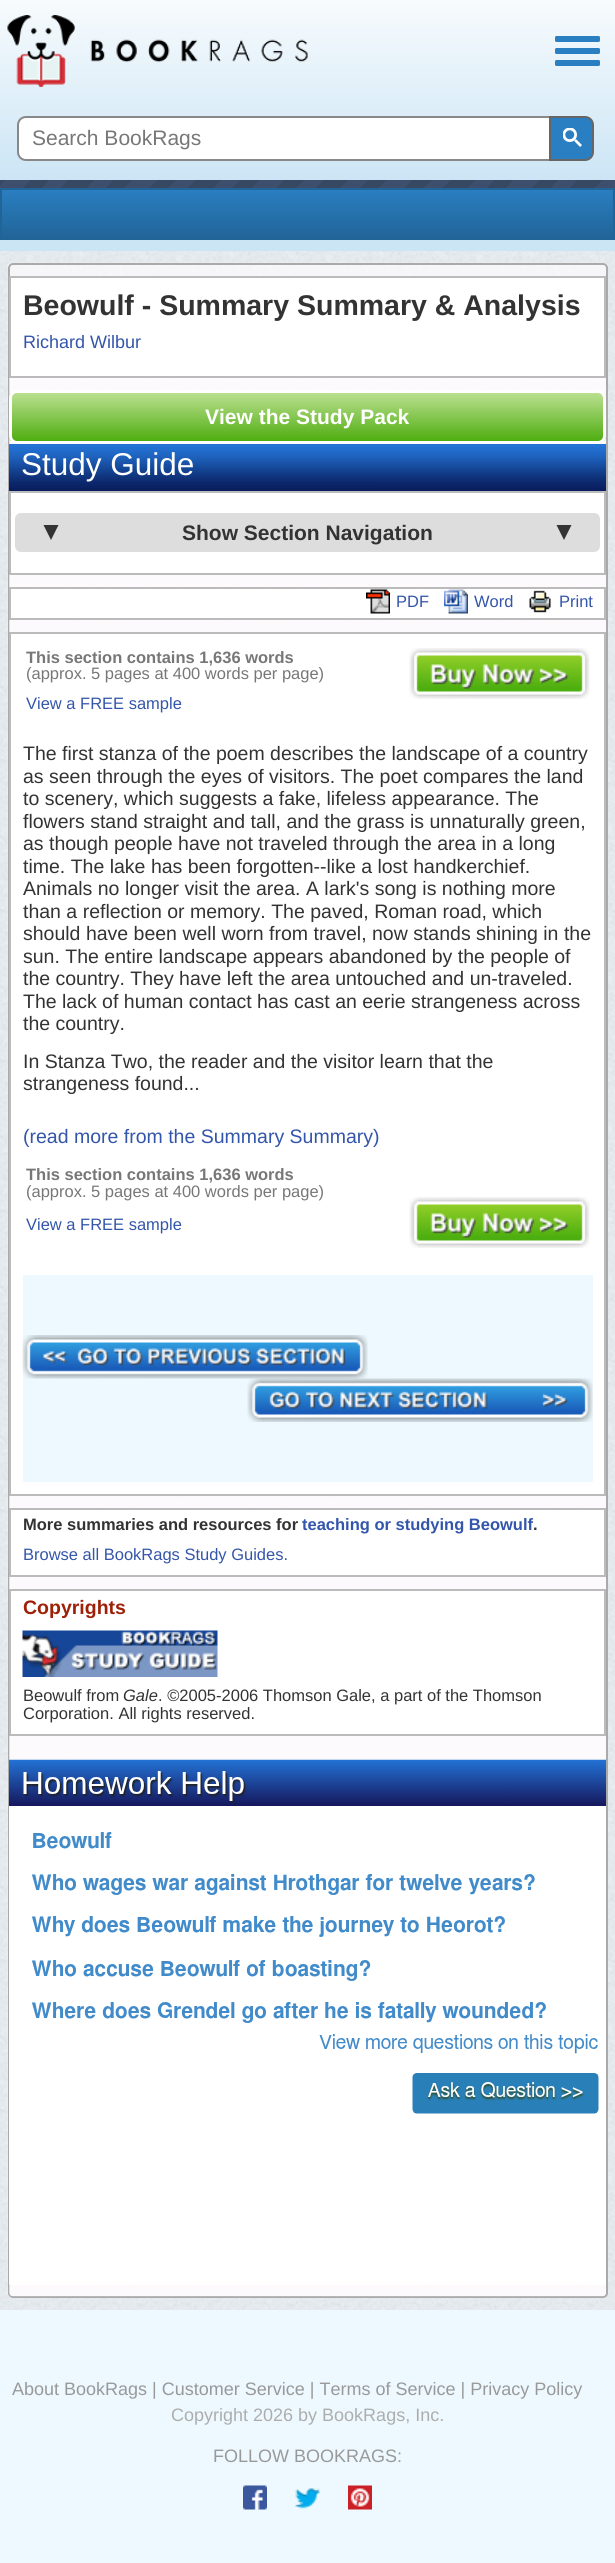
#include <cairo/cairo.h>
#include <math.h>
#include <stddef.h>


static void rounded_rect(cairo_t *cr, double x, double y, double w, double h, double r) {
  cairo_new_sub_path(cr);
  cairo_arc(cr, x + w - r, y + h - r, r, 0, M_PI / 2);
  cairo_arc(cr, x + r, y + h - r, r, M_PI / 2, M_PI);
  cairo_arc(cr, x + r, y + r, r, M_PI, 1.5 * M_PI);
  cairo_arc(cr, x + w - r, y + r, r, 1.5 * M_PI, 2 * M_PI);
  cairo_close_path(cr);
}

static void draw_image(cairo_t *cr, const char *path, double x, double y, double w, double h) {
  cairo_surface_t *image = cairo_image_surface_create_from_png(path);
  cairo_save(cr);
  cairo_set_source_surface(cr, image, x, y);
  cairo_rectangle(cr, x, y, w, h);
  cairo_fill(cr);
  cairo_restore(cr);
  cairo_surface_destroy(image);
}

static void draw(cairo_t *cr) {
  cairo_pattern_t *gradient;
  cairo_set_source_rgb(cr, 1, 1, 1);
  cairo_paint(cr);
  draw_image(cr, "images/1.png", 0, 251, 615, 2059);
  gradient = cairo_pattern_create_linear(308, 0, 308, 180);
  cairo_pattern_add_color_stop_rgba(gradient, 0, 247 / 255.0, 251 / 255.0, 253 / 255.0, 1);
  cairo_pattern_add_color_stop_rgba(gradient, 1, 204 / 255.0, 229 / 255.0, 245 / 255.0, 1);
  cairo_set_source(cr, gradient);
  cairo_pattern_destroy(gradient);
  cairo_rectangle(cr, 0, 0, 615, 180);
  cairo_fill(cr);
  draw_image(cr, "images/2.png", 7, 15, 301, 72);
  cairo_set_source_rgb(cr, 42 / 255.0, 127 / 255.0, 194 / 255.0);
  rounded_rect(cr, 555, 36, 45, 6, 1.5);
  cairo_fill(cr);
  rounded_rect(cr, 555, 48, 45, 6, 1.5);
  cairo_fill(cr);
  rounded_rect(cr, 555, 60, 45, 6, 1.5);
  cairo_fill(cr);
  cairo_set_source_rgb(cr, 1, 1, 1);
  cairo_new_path(cr);
  cairo_move_to(cr, 26, 117);
  cairo_line_to(cr, 550, 117);
  cairo_line_to(cr, 550, 160);
  cairo_line_to(cr, 26, 160);
  cairo_curve_to(cr, 21.5, 160, 18, 156.5, 18, 152);
  cairo_line_to(cr, 18, 125);
  cairo_curve_to(cr, 18, 120.5, 21.5, 117, 26, 117);
  cairo_close_path(cr);
  cairo_fill_preserve(cr);
  cairo_set_source_rgb(cr, 136 / 255.0, 136 / 255.0, 136 / 255.0);
  cairo_stroke(cr);
  cairo_set_source_rgb(cr, 42 / 255.0, 127 / 255.0, 194 / 255.0);
  cairo_new_path(cr);
  cairo_move_to(cr, 550, 117);
  cairo_line_to(cr, 585, 117);
  cairo_curve_to(cr, 589.5, 117, 593, 120.5, 593, 125);
  cairo_line_to(cr, 593, 152);
  cairo_curve_to(cr, 593, 156.5, 589.5, 160, 585, 160);
  cairo_line_to(cr, 550, 160);
  cairo_close_path(cr);
  cairo_fill_preserve(cr);
  cairo_set_source_rgb(cr, 102 / 255.0, 102 / 255.0, 102 / 255.0);
  cairo_stroke(cr);
  draw_image(cr, "images/3.png", 563, 128, 19, 19);
  gradient = cairo_pattern_create_linear(463, 339, 145, 21);
  cairo_pattern_add_color_stop_rgba(gradient, 0, 61 / 255.0, 79 / 255.0, 108 / 255.0, 1);
  cairo_pattern_add_color_stop_rgba(gradient, 0.03, 61 / 255.0, 79 / 255.0, 108 / 255.0, 1);
  cairo_pattern_add_color_stop_rgba(gradient, 0.03, 55 / 255.0, 72 / 255.0, 98 / 255.0, 1);
  cairo_pattern_add_color_stop_rgba(gradient, 0.07, 55 / 255.0, 72 / 255.0, 98 / 255.0, 1);
  cairo_pattern_add_color_stop_rgba(gradient, 0.07, 61 / 255.0, 79 / 255.0, 108 / 255.0, 1);
  cairo_pattern_add_color_stop_rgba(gradient, 0.1, 61 / 255.0, 79 / 255.0, 108 / 255.0, 1);
  cairo_pattern_add_color_stop_rgba(gradient, 0.1, 55 / 255.0, 72 / 255.0, 98 / 255.0, 1);
  cairo_pattern_add_color_stop_rgba(gradient, 0.13, 55 / 255.0, 72 / 255.0, 98 / 255.0, 1);
  cairo_pattern_add_color_stop_rgba(gradient, 0.13, 61 / 255.0, 79 / 255.0, 108 / 255.0, 1);
  cairo_pattern_add_color_stop_rgba(gradient, 0.17, 61 / 255.0, 79 / 255.0, 108 / 255.0, 1);
  cairo_pattern_add_color_stop_rgba(gradient, 0.17, 55 / 255.0, 72 / 255.0, 98 / 255.0, 1);
  cairo_pattern_add_color_stop_rgba(gradient, 0.2, 55 / 255.0, 72 / 255.0, 98 / 255.0, 1);
  cairo_pattern_add_color_stop_rgba(gradient, 0.2, 61 / 255.0, 79 / 255.0, 108 / 255.0, 1);
  cairo_pattern_add_color_stop_rgba(gradient, 0.23, 61 / 255.0, 79 / 255.0, 108 / 255.0, 1);
  cairo_pattern_add_color_stop_rgba(gradient, 0.23, 55 / 255.0, 72 / 255.0, 98 / 255.0, 1);
  cairo_pattern_add_color_stop_rgba(gradient, 0.27, 55 / 255.0, 72 / 255.0, 98 / 255.0, 1);
  cairo_pattern_add_color_stop_rgba(gradient, 0.27, 61 / 255.0, 79 / 255.0, 108 / 255.0, 1);
  cairo_pattern_add_color_stop_rgba(gradient, 0.3, 61 / 255.0, 79 / 255.0, 108 / 255.0, 1);
  cairo_pattern_add_color_stop_rgba(gradient, 0.3, 55 / 255.0, 72 / 255.0, 98 / 255.0, 1);
  cairo_pattern_add_color_stop_rgba(gradient, 0.33, 55 / 255.0, 72 / 255.0, 98 / 255.0, 1);
  cairo_pattern_add_color_stop_rgba(gradient, 0.33, 61 / 255.0, 79 / 255.0, 108 / 255.0, 1);
  cairo_pattern_add_color_stop_rgba(gradient, 0.37, 61 / 255.0, 79 / 255.0, 108 / 255.0, 1);
  cairo_pattern_add_color_stop_rgba(gradient, 0.37, 55 / 255.0, 72 / 255.0, 98 / 255.0, 1);
  cairo_pattern_add_color_stop_rgba(gradient, 0.4, 55 / 255.0, 72 / 255.0, 98 / 255.0, 1);
  cairo_pattern_add_color_stop_rgba(gradient, 0.4, 61 / 255.0, 79 / 255.0, 108 / 255.0, 1);
  cairo_pattern_add_color_stop_rgba(gradient, 0.43, 61 / 255.0, 79 / 255.0, 108 / 255.0, 1);
  cairo_pattern_add_color_stop_rgba(gradient, 0.43, 55 / 255.0, 72 / 255.0, 98 / 255.0, 1);
  cairo_pattern_add_color_stop_rgba(gradient, 0.47, 55 / 255.0, 72 / 255.0, 98 / 255.0, 1);
  cairo_pattern_add_color_stop_rgba(gradient, 0.47, 61 / 255.0, 79 / 255.0, 108 / 255.0, 1);
  cairo_pattern_add_color_stop_rgba(gradient, 0.5, 61 / 255.0, 79 / 255.0, 108 / 255.0, 1);
  cairo_pattern_add_color_stop_rgba(gradient, 0.5, 55 / 255.0, 72 / 255.0, 98 / 255.0, 1);
  cairo_pattern_add_color_stop_rgba(gradient, 0.53, 55 / 255.0, 72 / 255.0, 98 / 255.0, 1);
  cairo_pattern_add_color_stop_rgba(gradient, 0.53, 61 / 255.0, 79 / 255.0, 108 / 255.0, 1);
  cairo_pattern_add_color_stop_rgba(gradient, 0.57, 61 / 255.0, 79 / 255.0, 108 / 255.0, 1);
  cairo_pattern_add_color_stop_rgba(gradient, 0.57, 55 / 255.0, 72 / 255.0, 98 / 255.0, 1);
  cairo_pattern_add_color_stop_rgba(gradient, 0.6, 55 / 255.0, 72 / 255.0, 98 / 255.0, 1);
  cairo_pattern_add_color_stop_rgba(gradient, 0.6, 61 / 255.0, 79 / 255.0, 108 / 255.0, 1);
  cairo_pattern_add_color_stop_rgba(gradient, 0.63, 61 / 255.0, 79 / 255.0, 108 / 255.0, 1);
  cairo_pattern_add_color_stop_rgba(gradient, 0.63, 55 / 255.0, 72 / 255.0, 98 / 255.0, 1);
  cairo_pattern_add_color_stop_rgba(gradient, 0.67, 55 / 255.0, 72 / 255.0, 98 / 255.0, 1);
  cairo_pattern_add_color_stop_rgba(gradient, 0.67, 61 / 255.0, 79 / 255.0, 108 / 255.0, 1);
  cairo_pattern_add_color_stop_rgba(gradient, 0.7, 61 / 255.0, 79 / 255.0, 108 / 255.0, 1);
  cairo_pattern_add_color_stop_rgba(gradient, 0.7, 55 / 255.0, 72 / 255.0, 98 / 255.0, 1);
  cairo_pattern_add_color_stop_rgba(gradient, 0.73, 55 / 255.0, 72 / 255.0, 98 / 255.0, 1);
  cairo_pattern_add_color_stop_rgba(gradient, 0.73, 61 / 255.0, 79 / 255.0, 108 / 255.0, 1);
  cairo_pattern_add_color_stop_rgba(gradient, 0.77, 61 / 255.0, 79 / 255.0, 108 / 255.0, 1);
  cairo_pattern_add_color_stop_rgba(gradient, 0.77, 55 / 255.0, 72 / 255.0, 98 / 255.0, 1);
  cairo_pattern_add_color_stop_rgba(gradient, 0.8, 55 / 255.0, 72 / 255.0, 98 / 255.0, 1);
  cairo_pattern_add_color_stop_rgba(gradient, 0.8, 61 / 255.0, 79 / 255.0, 108 / 255.0, 1);
  cairo_pattern_add_color_stop_rgba(gradient, 0.83, 61 / 255.0, 79 / 255.0, 108 / 255.0, 1);
  cairo_pattern_add_color_stop_rgba(gradient, 0.83, 55 / 255.0, 72 / 255.0, 98 / 255.0, 1);
  cairo_pattern_add_color_stop_rgba(gradient, 0.87, 55 / 255.0, 72 / 255.0, 98 / 255.0, 1);
  cairo_pattern_add_color_stop_rgba(gradient, 0.87, 61 / 255.0, 79 / 255.0, 108 / 255.0, 1);
  cairo_pattern_add_color_stop_rgba(gradient, 0.9, 61 / 255.0, 79 / 255.0, 108 / 255.0, 1);
  cairo_pattern_add_color_stop_rgba(gradient, 0.9, 55 / 255.0, 72 / 255.0, 98 / 255.0, 1);
  cairo_pattern_add_color_stop_rgba(gradient, 0.93, 55 / 255.0, 72 / 255.0, 98 / 255.0, 1);
  cairo_pattern_add_color_stop_rgba(gradient, 0.93, 61 / 255.0, 79 / 255.0, 108 / 255.0, 1);
  cairo_pattern_add_color_stop_rgba(gradient, 0.97, 61 / 255.0, 79 / 255.0, 108 / 255.0, 1);
  cairo_pattern_add_color_stop_rgba(gradient, 0.97, 55 / 255.0, 72 / 255.0, 98 / 255.0, 1);
  cairo_pattern_add_color_stop_rgba(gradient, 1, 55 / 255.0, 72 / 255.0, 98 / 255.0, 1);
  cairo_set_source(cr, gradient);
  cairo_pattern_destroy(gradient);
  cairo_rectangle(cr, 0, 180, 615, 8);
  cairo_fill(cr);
  gradient = cairo_pattern_create_linear(308, 189, 308, 239);
  cairo_pattern_add_color_stop_rgba(gradient, 0, 42 / 255.0, 127 / 255.0, 194 / 255.0, 1);
  cairo_pattern_add_color_stop_rgba(gradient, 1, 33 / 255.0, 100 / 255.0, 152 / 255.0, 1);
  cairo_set_source(cr, gradient);
  cairo_pattern_destroy(gradient);
  cairo_rectangle(cr, 2, 190, 611, 48);
  cairo_fill(cr);
  cairo_rectangle(cr, 1, 189, 613, 50);
  cairo_set_source_rgb(cr, 33 / 255.0, 100 / 255.0, 152 / 255.0);
  cairo_stroke(cr);
  cairo_set_source_rgb(cr, 204 / 255.0, 229 / 255.0, 245 / 255.0);
  cairo_rectangle(cr, 0, 240, 615, 11);
  cairo_fill(cr);
  draw_image(cr, "images/4.png", 7, 262, 601, 2036);
  rounded_rect(cr, 9, 264, 598, 2033, 4);
  cairo_set_source_rgb(cr, 170 / 255.0, 170 / 255.0, 170 / 255.0);
  cairo_stroke(cr);
  draw_image(cr, "images/5.png", 9, 378, 597, 1919);
  cairo_set_source_rgb(cr, 1, 1, 1);
  cairo_rectangle(cr, 10, 277, 595, 100);
  cairo_fill_preserve(cr);
  cairo_set_source_rgb(cr, 187 / 255.0, 187 / 255.0, 187 / 255.0);
  cairo_stroke(cr);
  cairo_save(cr);
  rounded_rect(cr, 9, 390, 597, 54, 8);
  cairo_clip(cr);
  gradient = cairo_pattern_create_linear(308, 393, 308, 441);
  cairo_pattern_add_color_stop_rgba(gradient, 0, 187 / 255.0, 224 / 255.0, 144 / 255.0, 1);
  cairo_pattern_add_color_stop_rgba(gradient, 1, 79 / 255.0, 173 / 255.0, 16 / 255.0, 1);
  cairo_set_source(cr, gradient);
  cairo_pattern_destroy(gradient);
  cairo_rectangle(cr, 9, 393, 597, 48);
  cairo_fill(cr);
  cairo_restore(cr);
  rounded_rect(cr, 10.5, 391.5, 594, 51, 6.5);
  cairo_set_source_rgb(cr, 1, 1, 1);
  cairo_set_line_width(cr, 3);
  cairo_stroke(cr);
  cairo_set_source_rgb(cr, 9 / 255.0, 30 / 255.0, 94 / 255.0);
  cairo_rectangle(cr, 9, 488, 597, 3);
  cairo_fill(cr);
  draw_image(cr, "images/6.png", 9, 444, 597, 44);
  cairo_set_source_rgb(cr, 1, 1, 1);
  cairo_rectangle(cr, 10, 492, 595, 82);
  cairo_fill_preserve(cr);
  cairo_set_source_rgb(cr, 187 / 255.0, 187 / 255.0, 187 / 255.0);
  cairo_set_line_width(cr, 2);
  cairo_stroke(cr);
  cairo_set_source_rgb(cr, 221 / 255.0, 221 / 255.0, 221 / 255.0);
  rounded_rect(cr, 15, 513, 585, 39, 6);
  cairo_fill(cr);
  cairo_set_source_rgb(cr, 51 / 255.0, 51 / 255.0, 51 / 255.0);
  cairo_new_path(cr);
  cairo_move_to(cr, 43.5, 525);
  cairo_line_to(cr, 58.5, 525);
  cairo_line_to(cr, 51, 540);
  cairo_close_path(cr);
  cairo_fill(cr);
  cairo_new_path(cr);
  cairo_move_to(cr, 556.5, 525);
  cairo_line_to(cr, 571.5, 525);
  cairo_line_to(cr, 564, 540);
  cairo_close_path(cr);
  cairo_fill(cr);
  cairo_set_source_rgb(cr, 1, 1, 1);
  cairo_rectangle(cr, 10, 588, 595, 31);
  cairo_fill_preserve(cr);
  cairo_set_source_rgb(cr, 187 / 255.0, 187 / 255.0, 187 / 255.0);
  cairo_stroke(cr);
  draw_image(cr, "images/7.png", 366, 589, 24, 25);
  draw_image(cr, "images/8.png", 444, 589, 24, 25);
  draw_image(cr, "images/9.png", 529, 590, 22, 23);
  cairo_set_source_rgb(cr, 1, 1, 1);
  cairo_rectangle(cr, 10, 633, 595, 862);
  cairo_fill_preserve(cr);
  cairo_set_source_rgb(cr, 187 / 255.0, 187 / 255.0, 187 / 255.0);
  cairo_stroke(cr);
  draw_image(cr, "images/10.png", 409, 648, 181, 51);
  draw_image(cr, "images/10.png", 409, 1197, 181, 51);
  cairo_set_source_rgb(cr, 237 / 255.0, 249 / 255.0, 1);
  cairo_rectangle(cr, 23, 1275, 570, 207);
  cairo_fill(cr);
  draw_image(cr, "images/11.png", 22, 1335, 346, 44);
  draw_image(cr, "images/12.png", 247, 1378, 346, 44);
  cairo_set_source_rgb(cr, 1, 1, 1);
  cairo_rectangle(cr, 10, 1509, 595, 67);
  cairo_fill_preserve(cr);
  cairo_set_source_rgb(cr, 187 / 255.0, 187 / 255.0, 187 / 255.0);
  cairo_stroke(cr);
  cairo_set_source_rgb(cr, 1, 1, 1);
  cairo_rectangle(cr, 10, 1590, 595, 145);
  cairo_fill_preserve(cr);
  cairo_set_source_rgb(cr, 187 / 255.0, 187 / 255.0, 187 / 255.0);
  cairo_stroke(cr);
  draw_image(cr, "images/13.png", 22, 1630, 196, 47);
  cairo_set_source_rgb(cr, 1, 1, 1);
  rounded_rect(cr, 9, 1760, 597, 525, 5);
  cairo_fill(cr);
  draw_image(cr, "images/14.png", 9, 1759, 597, 526);
  cairo_set_source_rgb(cr, 237 / 255.0, 249 / 255.0, 1);
  cairo_rectangle(cr, 0, 2310, 615, 253);
  cairo_fill(cr);
  draw_image(cr, "images/15.png", 243, 2485, 24, 25);
  draw_image(cr, "images/16.png", 295, 2488, 25, 21);
  draw_image(cr, "images/17.png", 348, 2485, 24, 25);
  cairo_select_font_face(cr, "Liberation Sans", CAIRO_FONT_SLANT_NORMAL, CAIRO_FONT_WEIGHT_NORMAL);
  cairo_set_font_size(cr, 21);
  cairo_set_source_rgb(cr, 119 / 255.0, 119 / 255.0, 119 / 255.0);
  cairo_move_to(cr, 32, 145);
  cairo_show_text(cr, "Search BookRags");
  cairo_select_font_face(cr, "Liberation Sans", CAIRO_FONT_SLANT_NORMAL, CAIRO_FONT_WEIGHT_BOLD);
  cairo_set_font_size(cr, 28.5);
  cairo_set_source_rgb(cr, 51 / 255.0, 51 / 255.0, 51 / 255.0);
  cairo_move_to(cr, 23, 315);
  cairo_show_text(cr, "Beowulf - Summary Summary & Analysis");
  cairo_select_font_face(cr, "Liberation Sans", CAIRO_FONT_SLANT_NORMAL, CAIRO_FONT_WEIGHT_NORMAL);
  cairo_set_font_size(cr, 18);
  cairo_set_source_rgb(cr, 51 / 255.0, 85 / 255.0, 170 / 255.0);
  cairo_move_to(cr, 23, 348);
  cairo_show_text(cr, "Richard Wilbur");
  cairo_select_font_face(cr, "Liberation Sans", CAIRO_FONT_SLANT_NORMAL, CAIRO_FONT_WEIGHT_BOLD);
  cairo_set_font_size(cr, 21);
  cairo_set_source_rgb(cr, 1, 1, 1);
  cairo_move_to(cr, 205, 424);
  cairo_show_text(cr, "View the Study Pack");
  cairo_select_font_face(cr, "Liberation Sans", CAIRO_FONT_SLANT_NORMAL, CAIRO_FONT_WEIGHT_NORMAL);
  cairo_set_font_size(cr, 31.5);
  cairo_move_to(cr, 21, 475);
  cairo_show_text(cr, "Study Guide");
  cairo_select_font_face(cr, "Liberation Sans", CAIRO_FONT_SLANT_NORMAL, CAIRO_FONT_WEIGHT_BOLD);
  cairo_set_font_size(cr, 21);
  cairo_set_source_rgb(cr, 51 / 255.0, 51 / 255.0, 51 / 255.0);
  cairo_move_to(cr, 182, 540);
  cairo_show_text(cr, "Show Section Navigation");
  cairo_select_font_face(cr, "Liberation Sans", CAIRO_FONT_SLANT_NORMAL, CAIRO_FONT_WEIGHT_NORMAL);
  cairo_set_font_size(cr, 16.5);
  cairo_set_source_rgb(cr, 51 / 255.0, 85 / 255.0, 170 / 255.0);
  cairo_move_to(cr, 396, 607);
  cairo_show_text(cr, "PDF");
  cairo_move_to(cr, 474, 607);
  cairo_show_text(cr, "Word");
  cairo_move_to(cr, 559, 607);
  cairo_show_text(cr, "Print");
  cairo_select_font_face(cr, "Liberation Sans", CAIRO_FONT_SLANT_NORMAL, CAIRO_FONT_WEIGHT_BOLD);
  cairo_set_source_rgb(cr, 119 / 255.0, 119 / 255.0, 119 / 255.0);
  cairo_move_to(cr, 26, 663);
  cairo_show_text(cr, "This section contains 1,636 words");
  cairo_select_font_face(cr, "Liberation Sans", CAIRO_FONT_SLANT_NORMAL, CAIRO_FONT_WEIGHT_NORMAL);
  cairo_move_to(cr, 26, 679);
  cairo_show_text(cr, "(approx. 5 pages at 400 words per page)");
  cairo_set_source_rgb(cr, 51 / 255.0, 85 / 255.0, 170 / 255.0);
  cairo_move_to(cr, 26, 709);
  cairo_show_text(cr, "View a FREE sample");
  cairo_set_font_size(cr, 19.5);
  cairo_set_source_rgb(cr, 51 / 255.0, 51 / 255.0, 51 / 255.0);
  cairo_move_to(cr, 23, 760);
  cairo_show_text(cr, "The first stanza of the poem describes the landscape of a country");
  cairo_move_to(cr, 23, 783);
  cairo_show_text(cr, "as seen through the eyes of visitors. The poet compares the land");
  cairo_move_to(cr, 23, 805);
  cairo_show_text(cr, "to scenery, which suggests a fake, lifeless appearance. The");
  cairo_move_to(cr, 23, 828);
  cairo_show_text(cr, "flowers stand straight and tall, and the grass is unnaturally green,");
  cairo_move_to(cr, 23, 850);
  cairo_show_text(cr, "as though people have not traveled through the area in a long");
  cairo_move_to(cr, 23, 873);
  cairo_show_text(cr, "time. The lake has been forgotten--like a lost handkerchief.");
  cairo_move_to(cr, 23, 895);
  cairo_show_text(cr, "Animals no longer visit the area. A lark's song is nothing more");
  cairo_move_to(cr, 23, 918);
  cairo_show_text(cr, "than a reflection or memory. The paved, Roman road, which");
  cairo_move_to(cr, 23, 940);
  cairo_show_text(cr, "should have been well worn from travel, now stands shining in the");
  cairo_move_to(cr, 23, 963);
  cairo_show_text(cr, "sun. The entire landscape appears abandoned by the people of");
  cairo_move_to(cr, 23, 985);
  cairo_show_text(cr, "the country. They have left the area untouched and un-traveled.");
  cairo_move_to(cr, 23, 1008);
  cairo_show_text(cr, "The lack of human contact has cast an eerie strangeness across");
  cairo_move_to(cr, 23, 1030);
  cairo_show_text(cr, "the country.");
  cairo_move_to(cr, 23, 1068);
  cairo_show_text(cr, "In Stanza Two, the reader and the visitor learn that the");
  cairo_move_to(cr, 23, 1090);
  cairo_show_text(cr, "strangeness found...");
  cairo_set_source_rgb(cr, 51 / 255.0, 85 / 255.0, 170 / 255.0);
  cairo_move_to(cr, 23, 1143);
  cairo_show_text(cr, "(read more from the Summary Summary)");
  cairo_select_font_face(cr, "Liberation Sans", CAIRO_FONT_SLANT_NORMAL, CAIRO_FONT_WEIGHT_BOLD);
  cairo_set_font_size(cr, 16.5);
  cairo_set_source_rgb(cr, 119 / 255.0, 119 / 255.0, 119 / 255.0);
  cairo_move_to(cr, 26, 1180);
  cairo_show_text(cr, "This section contains 1,636 words");
  cairo_select_font_face(cr, "Liberation Sans", CAIRO_FONT_SLANT_NORMAL, CAIRO_FONT_WEIGHT_NORMAL);
  cairo_move_to(cr, 26, 1197);
  cairo_show_text(cr, "(approx. 5 pages at 400 words per page)");
  cairo_set_source_rgb(cr, 51 / 255.0, 85 / 255.0, 170 / 255.0);
  cairo_move_to(cr, 26, 1230);
  cairo_show_text(cr, "View a FREE sample");
  cairo_select_font_face(cr, "Liberation Sans", CAIRO_FONT_SLANT_NORMAL, CAIRO_FONT_WEIGHT_BOLD);
  cairo_set_source_rgb(cr, 51 / 255.0, 51 / 255.0, 51 / 255.0);
  cairo_move_to(cr, 23, 1530);
  cairo_show_text(cr, "More summaries and resources for");
  cairo_set_source_rgb(cr, 51 / 255.0, 85 / 255.0, 170 / 255.0);
  cairo_move_to(cr, 302, 1530);
  cairo_show_text(cr, "teaching or studying Beowulf");
  cairo_set_source_rgb(cr, 51 / 255.0, 51 / 255.0, 51 / 255.0);
  cairo_move_to(cr, 533, 1530);
  cairo_show_text(cr, ".");
  cairo_select_font_face(cr, "Liberation Sans", CAIRO_FONT_SLANT_NORMAL, CAIRO_FONT_WEIGHT_NORMAL);
  cairo_set_source_rgb(cr, 51 / 255.0, 85 / 255.0, 170 / 255.0);
  cairo_move_to(cr, 23, 1560);
  cairo_show_text(cr, "Browse all BookRags Study Guides.");
  cairo_select_font_face(cr, "Liberation Sans", CAIRO_FONT_SLANT_NORMAL, CAIRO_FONT_WEIGHT_BOLD);
  cairo_set_font_size(cr, 19.5);
  cairo_set_source_rgb(cr, 157 / 255.0, 33 / 255.0, 8 / 255.0);
  cairo_move_to(cr, 23, 1614);
  cairo_show_text(cr, "Copyrights");
  cairo_select_font_face(cr, "Liberation Sans", CAIRO_FONT_SLANT_NORMAL, CAIRO_FONT_WEIGHT_NORMAL);
  cairo_set_font_size(cr, 16.5);
  cairo_set_source_rgb(cr, 51 / 255.0, 51 / 255.0, 51 / 255.0);
  cairo_move_to(cr, 23, 1701);
  cairo_show_text(cr, "Beowulf from");
  cairo_select_font_face(cr, "Liberation Sans", CAIRO_FONT_SLANT_ITALIC, CAIRO_FONT_WEIGHT_NORMAL);
  cairo_move_to(cr, 123, 1701);
  cairo_show_text(cr, "Gale");
  cairo_select_font_face(cr, "Liberation Sans", CAIRO_FONT_SLANT_NORMAL, CAIRO_FONT_WEIGHT_NORMAL);
  cairo_move_to(cr, 158, 1701);
  cairo_show_text(cr, ". ©2005-2006 Thomson Gale, a part of the Thomson");
  cairo_move_to(cr, 23, 1719);
  cairo_show_text(cr, "Corporation. All rights reserved.");
  cairo_set_font_size(cr, 18);
  cairo_set_source_rgb(cr, 153 / 255.0, 153 / 255.0, 153 / 255.0);
  cairo_move_to(cr, 12, 2395);
  cairo_show_text(cr, "About BookRags | Customer Service | Terms of Service | Privacy Policy");
  cairo_set_source_rgb(cr, 173 / 255.0, 173 / 255.0, 173 / 255.0);
  cairo_move_to(cr, 171, 2421);
  cairo_show_text(cr, "Copyright 2026 by BookRags, Inc.");
  cairo_set_source_rgb(cr, 153 / 255.0, 153 / 255.0, 153 / 255.0);
  cairo_move_to(cr, 213, 2462);
  cairo_show_text(cr, "FOLLOW BOOKRAGS:");
}

int main(void) {
  cairo_surface_t *surface = cairo_image_surface_create(CAIRO_FORMAT_RGB24, 615, 2563);
  cairo_t *cr = cairo_create(surface);
  cairo_font_options_t *options = cairo_font_options_create();
  cairo_font_options_set_hint_metrics(options, CAIRO_HINT_METRICS_OFF);
  cairo_font_options_set_hint_style(options, CAIRO_HINT_STYLE_NONE);
  cairo_set_font_options(cr, options);
  cairo_set_miter_limit(cr, 4);
  draw(cr);
  cairo_surface_write_to_png(surface, "out.png");
  cairo_font_options_destroy(options);
  cairo_destroy(cr);
  cairo_surface_destroy(surface);
  return 0;
}
